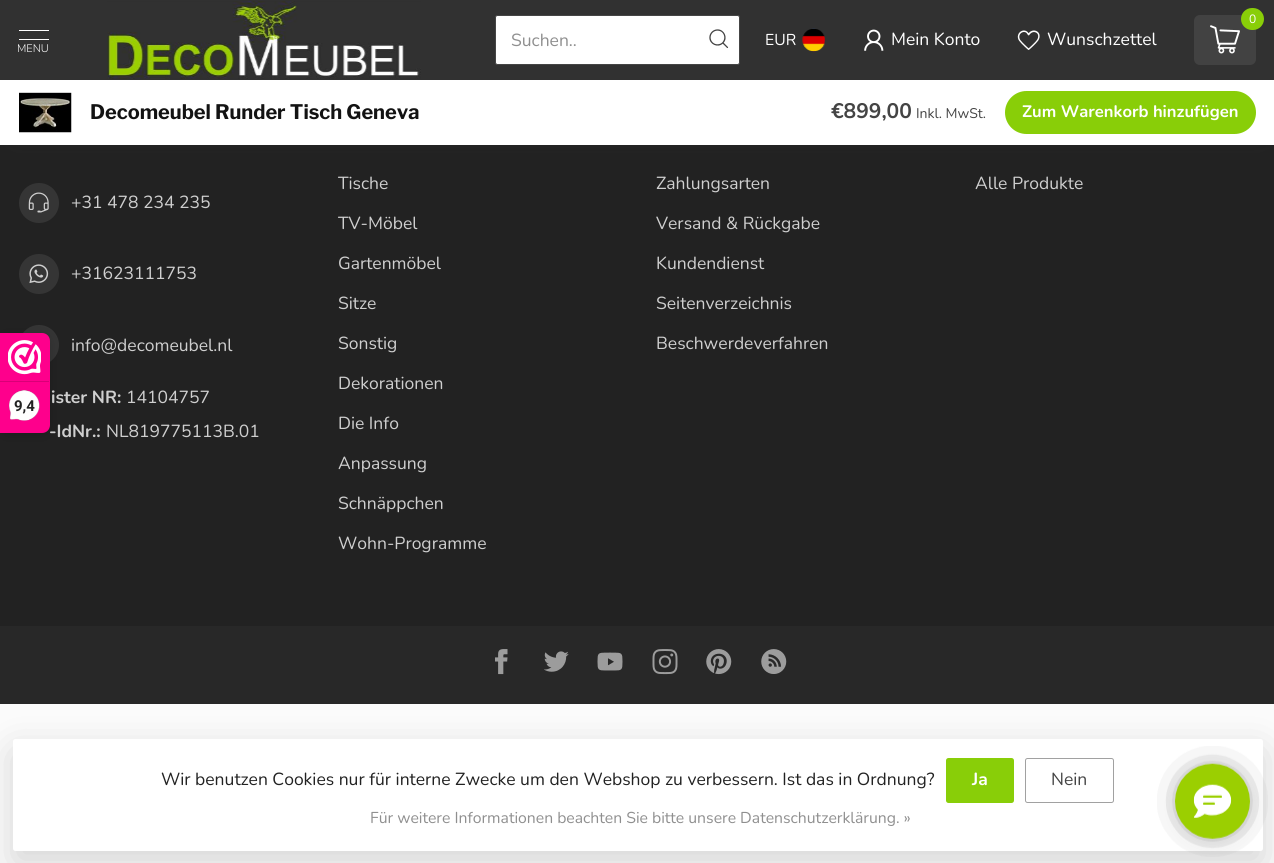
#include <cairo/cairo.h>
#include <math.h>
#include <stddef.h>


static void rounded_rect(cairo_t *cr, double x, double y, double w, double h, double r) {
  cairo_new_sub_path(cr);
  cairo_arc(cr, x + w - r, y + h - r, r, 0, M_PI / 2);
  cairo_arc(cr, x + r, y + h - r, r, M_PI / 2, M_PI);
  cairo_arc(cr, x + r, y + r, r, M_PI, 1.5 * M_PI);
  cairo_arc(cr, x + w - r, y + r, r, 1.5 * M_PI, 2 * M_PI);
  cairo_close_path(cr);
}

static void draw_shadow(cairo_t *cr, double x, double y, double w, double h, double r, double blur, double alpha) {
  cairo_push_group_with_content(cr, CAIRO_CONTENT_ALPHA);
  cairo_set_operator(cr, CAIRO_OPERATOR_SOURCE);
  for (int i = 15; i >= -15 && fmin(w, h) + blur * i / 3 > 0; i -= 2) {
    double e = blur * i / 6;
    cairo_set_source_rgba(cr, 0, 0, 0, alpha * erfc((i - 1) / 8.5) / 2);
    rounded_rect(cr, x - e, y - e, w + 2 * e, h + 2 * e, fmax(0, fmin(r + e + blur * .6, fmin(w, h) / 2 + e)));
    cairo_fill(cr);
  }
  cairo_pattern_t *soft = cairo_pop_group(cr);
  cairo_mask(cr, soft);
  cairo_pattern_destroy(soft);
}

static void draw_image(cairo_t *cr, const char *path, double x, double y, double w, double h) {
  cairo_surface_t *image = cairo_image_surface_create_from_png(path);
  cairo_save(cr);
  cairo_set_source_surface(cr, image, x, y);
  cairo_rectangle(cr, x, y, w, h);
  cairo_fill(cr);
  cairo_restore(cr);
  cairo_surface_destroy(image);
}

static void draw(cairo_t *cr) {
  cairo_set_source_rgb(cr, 34 / 255.0, 34 / 255.0, 34 / 255.0);
  cairo_paint(cr);
  cairo_set_source_rgb(cr, 68 / 255.0, 68 / 255.0, 68 / 255.0);
  draw_shadow(cr, 18, 100, 1240, 30, 0, 9.5, 1);
  cairo_set_source_rgb(cr, 49 / 255.0, 49 / 255.0, 49 / 255.0);
  cairo_rectangle(cr, 0, 0, 1274, 80);
  cairo_fill(cr);
  draw_image(cr, "images/1.png", 107, 1, 314, 78);
  cairo_set_source_rgb(cr, 1, 1, 1);
  rounded_rect(cr, 495.5, 15.5, 244, 49, 2);
  cairo_fill_preserve(cr);
  cairo_set_source_rgb(cr, 69 / 255.0, 69 / 255.0, 69 / 255.0);
  cairo_set_line_width(cr, 1);
  cairo_stroke(cr);
  draw_image(cr, "images/2.png", 709, 29, 20, 20);
  cairo_set_source_rgb(cr, 1, 1, 1);
  cairo_rectangle(cr, 19, 30, 30, 1);
  cairo_fill(cr);
  cairo_rectangle(cr, 19, 39, 30, 1);
  cairo_fill(cr);
  cairo_set_source_rgb(cr, 66 / 255.0, 66 / 255.0, 66 / 255.0);
  rounded_rect(cr, 1194, 15, 62, 50, 6);
  cairo_fill(cr);
  cairo_set_source_rgb(cr, 137 / 255.0, 206 / 255.0, 8 / 255.0);
  rounded_rect(cr, 1241, 8, 23, 22, 11);
  cairo_fill(cr);
  draw_image(cr, "images/3.png", 1210, 25, 30, 29);
  draw_image(cr, "images/4.png", 802, 28, 23, 24);
  draw_image(cr, "images/5.png", 864, 29, 20, 22);
  draw_image(cr, "images/6.png", 1017, 30, 23, 20);
  cairo_set_source_rgb(cr, 1, 1, 1);
  cairo_rectangle(cr, 0, 80, 1274, 65);
  cairo_fill(cr);
  draw_image(cr, "images/7.png", 19, 92, 53, 41);
  cairo_set_source_rgb(cr, 137 / 255.0, 206 / 255.0, 8 / 255.0);
  rounded_rect(cr, 1005, 91, 251, 43, 21.5);
  cairo_fill(cr);
  cairo_set_source_rgb(cr, 53 / 255.0, 53 / 255.0, 53 / 255.0);
  cairo_arc(cr, 39, 345, 20, 0, 2 * M_PI);
  cairo_fill(cr);
  cairo_set_source_rgb(cr, 0, 0, 0);
  draw_shadow(cr, 0, 335, 50, 100, 8, 6, 0.15);
  cairo_set_source_rgb(cr, 254 / 255.0, 0, 140 / 255.0);
  cairo_new_path(cr);
  cairo_move_to(cr, 0, 333);
  cairo_line_to(cr, 42, 333);
  cairo_curve_to(cr, 46.5, 333, 50, 336.5, 50, 341);
  cairo_line_to(cr, 50, 425);
  cairo_curve_to(cr, 50, 429.5, 46.5, 433, 42, 433);
  cairo_line_to(cr, 0, 433);
  cairo_close_path(cr);
  cairo_fill(cr);
  draw_image(cr, "images/8.png", 8, 340, 33, 35);
  cairo_set_source_rgb(cr, 216 / 255.0, 0, 119 / 255.0);
  cairo_rectangle(cr, 0, 381, 49, 1);
  cairo_fill(cr);
  draw_image(cr, "images/9.png", 9, 390, 31, 31);
  cairo_set_source_rgb(cr, 53 / 255.0, 53 / 255.0, 53 / 255.0);
  cairo_arc(cr, 39, 203, 20, 0, 2 * M_PI);
  cairo_fill(cr);
  draw_image(cr, "images/10.png", 28, 192, 21, 21);
  cairo_arc(cr, 39, 274, 20, 0, 2 * M_PI);
  cairo_fill(cr);
  draw_image(cr, "images/11.png", 29, 264, 20, 20);
  cairo_set_source_rgb(cr, 40 / 255.0, 40 / 255.0, 40 / 255.0);
  cairo_rectangle(cr, 0, 626, 1274, 78);
  cairo_fill(cr);
  draw_image(cr, "images/12.png", 495, 649, 13, 26);
  draw_image(cr, "images/13.png", 544, 651, 25, 21);
  draw_image(cr, "images/14.png", 597, 652, 26, 19);
  draw_image(cr, "images/15.png", 652, 649, 26, 26);
  draw_image(cr, "images/16.png", 706, 649, 26, 26);
  draw_image(cr, "images/17.png", 761, 649, 26, 25);
  cairo_set_source_rgb(cr, 251 / 255.0, 251 / 255.0, 251 / 255.0);
  cairo_rectangle(cr, 0, 704, 1274, 159);
  cairo_fill(cr);
  cairo_set_source_rgb(cr, 0, 0, 0);
  draw_shadow(cr, 13, 751, 1250, 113, 2.5, 19, 0.15);
  cairo_set_source_rgb(cr, 1, 1, 1);
  rounded_rect(cr, 13, 739, 1250, 112, 2.5);
  cairo_fill(cr);
  cairo_set_source_rgb(cr, 137 / 255.0, 206 / 255.0, 8 / 255.0);
  rounded_rect(cr, 946, 758, 68, 45, 2.5);
  cairo_fill(cr);
  rounded_rect(cr, 1025.5, 758.5, 88, 44, 2);
  cairo_set_source_rgb(cr, 161 / 255.0, 161 / 255.0, 161 / 255.0);
  cairo_stroke(cr);
  draw_image(cr, "images/18.png", 1157, 746, 111, 111);
  cairo_select_font_face(cr, "Nunito", CAIRO_FONT_SLANT_NORMAL, CAIRO_FONT_WEIGHT_NORMAL);
  cairo_set_font_size(cr, 17.5);
  cairo_set_source_rgb(cr, 143 / 255.0, 143 / 255.0, 143 / 255.0);
  cairo_move_to(cr, 511, 46);
  cairo_show_text(cr, "Suchen..");
  cairo_select_font_face(cr, "Nunito Light", CAIRO_FONT_SLANT_NORMAL, CAIRO_FONT_WEIGHT_NORMAL);
  cairo_set_font_size(cr, 11);
  cairo_set_source_rgb(cr, 1, 1, 1);
  cairo_move_to(cr, 17, 52);
  cairo_show_text(cr, "MENU");
  cairo_select_font_face(cr, "Nunito", CAIRO_FONT_SLANT_NORMAL, CAIRO_FONT_WEIGHT_NORMAL);
  cairo_set_font_size(cr, 12);
  cairo_move_to(cr, 1249, 23);
  cairo_show_text(cr, "0");
  cairo_set_font_size(cr, 15.75);
  cairo_move_to(cr, 765, 45);
  cairo_show_text(cr, "EUR");
  cairo_set_font_size(cr, 17.5);
  cairo_move_to(cr, 891, 45);
  cairo_show_text(cr, "Mein Konto");
  cairo_move_to(cr, 1047, 45);
  cairo_show_text(cr, "Wunschzettel");
  cairo_select_font_face(cr, "Libre Franklin", CAIRO_FONT_SLANT_NORMAL, CAIRO_FONT_WEIGHT_BOLD);
  cairo_set_font_size(cr, 20);
  cairo_set_source_rgb(cr, 19 / 255.0, 19 / 255.0, 19 / 255.0);
  cairo_move_to(cr, 90, 119);
  cairo_show_text(cr, "Decomeubel Runder Tisch Geneva");
  cairo_select_font_face(cr, "Nunito", CAIRO_FONT_SLANT_NORMAL, CAIRO_FONT_WEIGHT_BOLD);
  cairo_set_font_size(cr, 21);
  cairo_set_source_rgb(cr, 68 / 255.0, 68 / 255.0, 68 / 255.0);
  cairo_move_to(cr, 831, 118);
  cairo_show_text(cr, "€899,00");
  cairo_select_font_face(cr, "Nunito", CAIRO_FONT_SLANT_NORMAL, CAIRO_FONT_WEIGHT_NORMAL);
  cairo_set_font_size(cr, 14);
  cairo_move_to(cr, 916, 118);
  cairo_show_text(cr, "Inkl. MwSt.");
  cairo_select_font_face(cr, "Nunito", CAIRO_FONT_SLANT_NORMAL, CAIRO_FONT_WEIGHT_BOLD);
  cairo_set_font_size(cr, 16.6);
  cairo_set_source_rgb(cr, 1, 1, 1);
  cairo_move_to(cr, 1022, 117);
  cairo_show_text(cr, "Zum Warenkorb hinzufügen");
  cairo_select_font_face(cr, "Roboto", CAIRO_FONT_SLANT_NORMAL, CAIRO_FONT_WEIGHT_BOLD);
  cairo_set_font_size(cr, 15);
  cairo_set_source_rgb(cr, 34 / 255.0, 34 / 255.0, 34 / 255.0);
  cairo_move_to(cr, 14, 411);
  cairo_show_text(cr, "9,4");
  cairo_select_font_face(cr, "Nunito", CAIRO_FONT_SLANT_NORMAL, CAIRO_FONT_WEIGHT_NORMAL);
  cairo_set_font_size(cr, 17.5);
  cairo_set_source_rgb(cr, 207 / 255.0, 207 / 255.0, 207 / 255.0);
  cairo_move_to(cr, 338, 189);
  cairo_show_text(cr, "Tische");
  cairo_move_to(cr, 338, 229);
  cairo_show_text(cr, "TV-Möbel");
  cairo_move_to(cr, 338, 269);
  cairo_show_text(cr, "Gartenmöbel");
  cairo_move_to(cr, 338, 309);
  cairo_show_text(cr, "Sitze");
  cairo_move_to(cr, 338, 349);
  cairo_show_text(cr, "Sonstig");
  cairo_move_to(cr, 338, 389);
  cairo_show_text(cr, "Dekorationen");
  cairo_move_to(cr, 338, 429);
  cairo_show_text(cr, "Die Info");
  cairo_move_to(cr, 338, 469);
  cairo_show_text(cr, "Anpassung");
  cairo_move_to(cr, 338, 509);
  cairo_show_text(cr, "Schnäppchen");
  cairo_move_to(cr, 338, 549);
  cairo_show_text(cr, "Wohn-Programme");
  cairo_move_to(cr, 656, 189);
  cairo_show_text(cr, "Zahlungsarten");
  cairo_move_to(cr, 656, 229);
  cairo_show_text(cr, "Versand & Rückgabe");
  cairo_move_to(cr, 656, 269);
  cairo_show_text(cr, "Kundendienst");
  cairo_move_to(cr, 656, 309);
  cairo_show_text(cr, "Seitenverzeichnis");
  cairo_move_to(cr, 656, 349);
  cairo_show_text(cr, "Beschwerdeverfahren");
  cairo_move_to(cr, 975, 189);
  cairo_show_text(cr, "Alle Produkte");
  cairo_move_to(cr, 71, 208);
  cairo_show_text(cr, "+31 478 234 235");
  cairo_move_to(cr, 71, 279);
  cairo_show_text(cr, "+31623111753");
  cairo_move_to(cr, 71, 351);
  cairo_show_text(cr, "info@decomeubel.nl");
  cairo_select_font_face(cr, "Nunito", CAIRO_FONT_SLANT_NORMAL, CAIRO_FONT_WEIGHT_BOLD);
  cairo_move_to(cr, 51, 403);
  cairo_show_text(cr, "ister NR:");
  cairo_select_font_face(cr, "Nunito", CAIRO_FONT_SLANT_NORMAL, CAIRO_FONT_WEIGHT_NORMAL);
  cairo_move_to(cr, 126, 403);
  cairo_show_text(cr, "14104757");
  cairo_select_font_face(cr, "Nunito", CAIRO_FONT_SLANT_NORMAL, CAIRO_FONT_WEIGHT_BOLD);
  cairo_move_to(cr, 49, 437);
  cairo_show_text(cr, "-IdNr.:");
  cairo_select_font_face(cr, "Nunito", CAIRO_FONT_SLANT_NORMAL, CAIRO_FONT_WEIGHT_NORMAL);
  cairo_move_to(cr, 106, 437);
  cairo_show_text(cr, "NL819775113B.01");
  cairo_set_source_rgb(cr, 34 / 255.0, 34 / 255.0, 34 / 255.0);
  cairo_move_to(cr, 161, 785);
  cairo_show_text(cr, "Wir benutzen Cookies nur für interne Zwecke um den Webshop zu verbessern. Ist das in Ordnung?");
  cairo_select_font_face(cr, "Nunito", CAIRO_FONT_SLANT_NORMAL, CAIRO_FONT_WEIGHT_BOLD);
  cairo_set_source_rgb(cr, 1, 1, 1);
  cairo_move_to(cr, 972, 785);
  cairo_show_text(cr, "Ja");
  cairo_select_font_face(cr, "Nunito", CAIRO_FONT_SLANT_NORMAL, CAIRO_FONT_WEIGHT_NORMAL);
  cairo_set_source_rgb(cr, 68 / 255.0, 68 / 255.0, 68 / 255.0);
  cairo_move_to(cr, 1051, 785);
  cairo_show_text(cr, "Nein");
  cairo_set_font_size(cr, 15.75);
  cairo_set_source_rgb(cr, 143 / 255.0, 143 / 255.0, 143 / 255.0);
  cairo_move_to(cr, 370, 823);
  cairo_show_text(cr, "Für weitere Informationen beachten Sie bitte unsere Datenschutzerklärung. »");
}

int main(void) {
  cairo_surface_t *surface = cairo_image_surface_create(CAIRO_FORMAT_RGB24, 1274, 863);
  cairo_t *cr = cairo_create(surface);
  cairo_font_options_t *options = cairo_font_options_create();
  cairo_font_options_set_hint_metrics(options, CAIRO_HINT_METRICS_OFF);
  cairo_font_options_set_hint_style(options, CAIRO_HINT_STYLE_NONE);
  cairo_set_font_options(cr, options);
  cairo_set_miter_limit(cr, 4);
  draw(cr);
  cairo_surface_write_to_png(surface, "out.png");
  cairo_font_options_destroy(options);
  cairo_destroy(cr);
  cairo_surface_destroy(surface);
  return 0;
}
